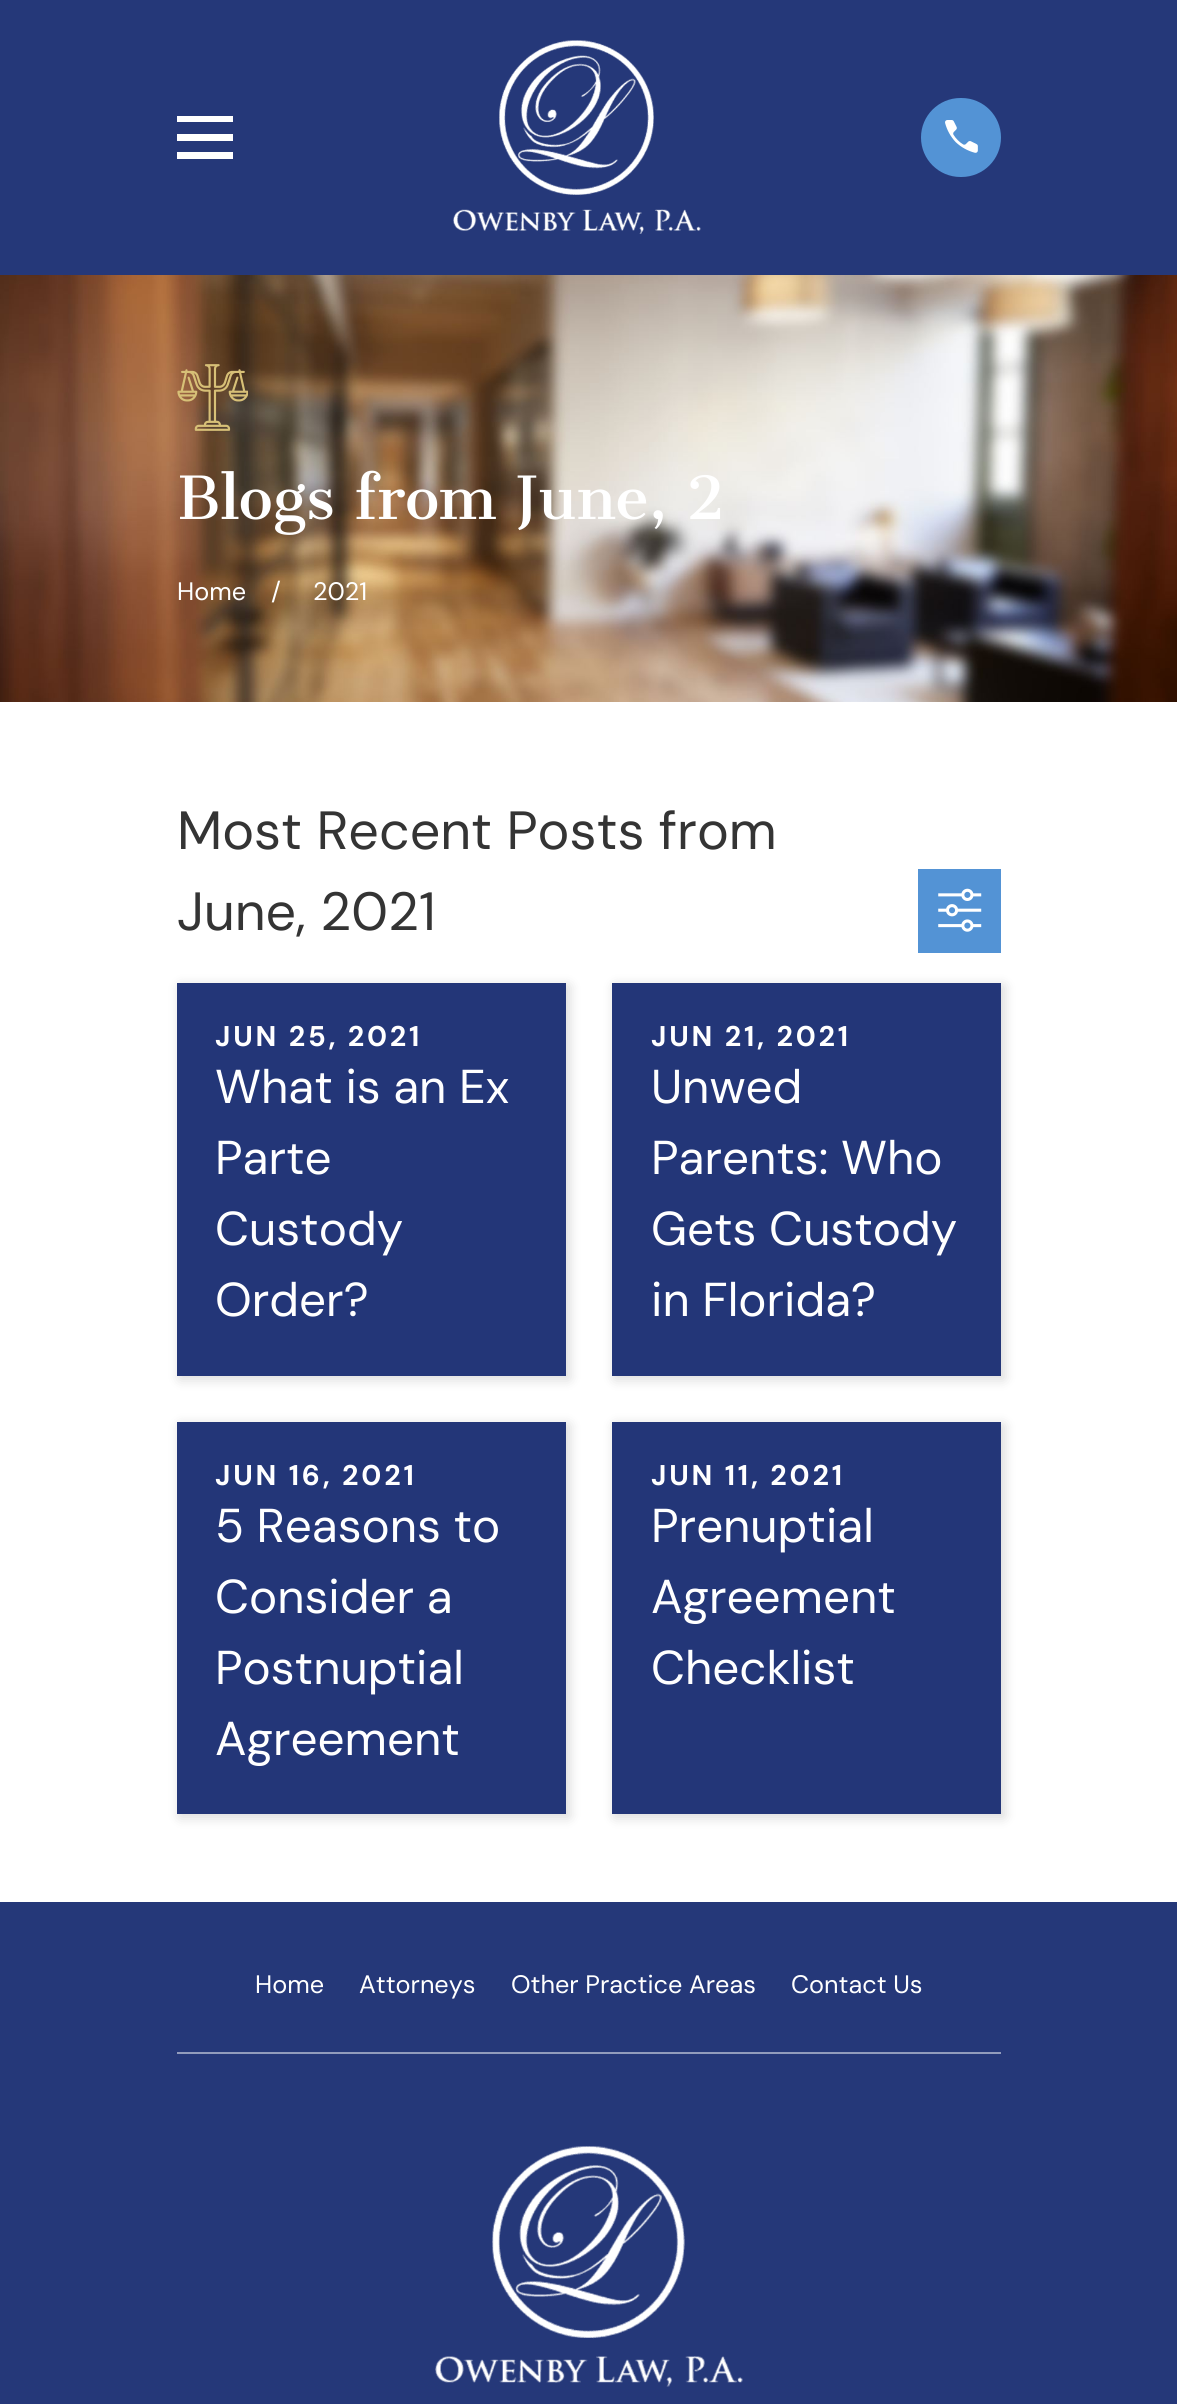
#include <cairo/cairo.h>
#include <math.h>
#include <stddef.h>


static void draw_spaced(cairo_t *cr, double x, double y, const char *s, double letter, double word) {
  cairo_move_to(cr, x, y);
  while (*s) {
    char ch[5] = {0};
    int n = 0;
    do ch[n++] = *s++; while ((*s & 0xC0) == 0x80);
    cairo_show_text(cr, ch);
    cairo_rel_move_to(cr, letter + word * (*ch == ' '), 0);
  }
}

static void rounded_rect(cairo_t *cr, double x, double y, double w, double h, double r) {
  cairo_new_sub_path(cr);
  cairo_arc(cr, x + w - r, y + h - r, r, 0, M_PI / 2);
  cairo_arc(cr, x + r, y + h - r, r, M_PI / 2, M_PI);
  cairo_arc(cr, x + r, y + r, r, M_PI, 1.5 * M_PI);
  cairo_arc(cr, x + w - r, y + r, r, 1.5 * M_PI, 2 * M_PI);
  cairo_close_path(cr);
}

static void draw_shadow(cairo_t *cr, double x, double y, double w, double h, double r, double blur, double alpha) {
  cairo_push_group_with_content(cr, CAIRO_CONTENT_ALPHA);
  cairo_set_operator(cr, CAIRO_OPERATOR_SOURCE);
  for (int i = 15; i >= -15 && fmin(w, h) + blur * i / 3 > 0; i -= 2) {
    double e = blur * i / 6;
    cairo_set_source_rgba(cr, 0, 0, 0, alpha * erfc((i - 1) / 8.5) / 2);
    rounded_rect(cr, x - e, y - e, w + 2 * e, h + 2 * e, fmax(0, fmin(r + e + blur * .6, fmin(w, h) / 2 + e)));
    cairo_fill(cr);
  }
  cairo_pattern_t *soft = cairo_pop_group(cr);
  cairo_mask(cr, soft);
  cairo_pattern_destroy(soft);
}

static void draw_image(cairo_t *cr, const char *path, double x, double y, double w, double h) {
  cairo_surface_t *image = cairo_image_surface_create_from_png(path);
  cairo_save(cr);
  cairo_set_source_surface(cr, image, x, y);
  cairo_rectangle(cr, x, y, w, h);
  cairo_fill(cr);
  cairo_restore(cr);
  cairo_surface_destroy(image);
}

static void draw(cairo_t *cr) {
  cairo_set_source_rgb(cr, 1, 1, 1);
  cairo_paint(cr);
  cairo_set_source_rgb(cr, 37 / 255.0, 56 / 255.0, 121 / 255.0);
  cairo_rectangle(cr, 0, 0, 1177, 275);
  cairo_fill(cr);
  cairo_set_source_rgb(cr, 1, 1, 1);
  cairo_new_path(cr);
  cairo_move_to(cr, 177, 116);
  cairo_line_to(cr, 177, 122);
  cairo_line_to(cr, 233, 122);
  cairo_line_to(cr, 233, 116);
  cairo_close_path(cr);
  cairo_move_to(cr, 177, 134);
  cairo_line_to(cr, 177, 141);
  cairo_line_to(cr, 233, 141);
  cairo_line_to(cr, 233, 134);
  cairo_close_path(cr);
  cairo_move_to(cr, 177, 152);
  cairo_line_to(cr, 177, 159);
  cairo_line_to(cr, 233, 159);
  cairo_line_to(cr, 233, 152);
  cairo_close_path(cr);
  cairo_fill(cr);
  draw_image(cr, "images/1.png", 453, 40, 248, 194);
  cairo_set_source_rgb(cr, 83 / 255.0, 147 / 255.0, 213 / 255.0);
  rounded_rect(cr, 921, 98, 80, 79, 39.5);
  cairo_fill(cr);
  draw_image(cr, "images/2.png", 945, 120, 33, 33);
  draw_image(cr, "images/3.png", 0, 275, 1177, 427);
  draw_image(cr, "images/4.png", 177, 364, 71, 67);
  cairo_rectangle(cr, 918, 869, 83, 84);
  cairo_fill(cr);
  draw_image(cr, "images/5.png", 938, 888, 44, 44);
  cairo_set_source_rgb(cr, 0, 0, 0);
  draw_shadow(cr, 180, 986, 389, 393, 0, 6.5, 0.16);
  cairo_set_source_rgb(cr, 35 / 255.0, 54 / 255.0, 120 / 255.0);
  cairo_rectangle(cr, 177, 983, 389, 393);
  cairo_fill(cr);
  cairo_set_source_rgb(cr, 0, 0, 0);
  draw_shadow(cr, 615, 986, 389, 393, 0, 6.5, 0.16);
  cairo_set_source_rgb(cr, 35 / 255.0, 54 / 255.0, 120 / 255.0);
  cairo_rectangle(cr, 612, 983, 389, 393);
  cairo_fill(cr);
  cairo_set_source_rgb(cr, 0, 0, 0);
  draw_shadow(cr, 180, 1425, 389, 392, 0, 6.5, 0.16);
  cairo_set_source_rgb(cr, 35 / 255.0, 54 / 255.0, 120 / 255.0);
  cairo_rectangle(cr, 177, 1422, 389, 392);
  cairo_fill(cr);
  cairo_set_source_rgb(cr, 0, 0, 0);
  draw_shadow(cr, 615, 1425, 389, 392, 0, 6.5, 0.16);
  cairo_set_source_rgb(cr, 35 / 255.0, 54 / 255.0, 120 / 255.0);
  cairo_rectangle(cr, 612, 1422, 389, 392);
  cairo_fill(cr);
  cairo_set_source_rgb(cr, 37 / 255.0, 56 / 255.0, 121 / 255.0);
  cairo_rectangle(cr, 0, 1902, 1177, 502);
  cairo_fill(cr);
  cairo_set_source_rgb(cr, 146 / 255.0, 156 / 255.0, 188 / 255.0);
  cairo_rectangle(cr, 177, 2052, 824, 2);
  cairo_fill(cr);
  draw_image(cr, "images/6.png", 435, 2146, 308, 241);
  cairo_select_font_face(cr, "Cantata One", CAIRO_FONT_SLANT_NORMAL, CAIRO_FONT_WEIGHT_NORMAL);
  cairo_set_font_size(cr, 58.25);
  cairo_set_source_rgb(cr, 1, 1, 1);
  draw_spaced(cr, 177, 519, "Blogs from June, 2", -0.6, 0);
  cairo_select_font_face(cr, "DM Sans", CAIRO_FONT_SLANT_NORMAL, CAIRO_FONT_WEIGHT_NORMAL);
  cairo_set_font_size(cr, 25.25);
  cairo_move_to(cr, 177, 600);
  cairo_show_text(cr, "Home");
  cairo_move_to(cr, 271, 600);
  cairo_show_text(cr, "/");
  cairo_move_to(cr, 313, 600);
  cairo_show_text(cr, "2021");
  cairo_set_font_size(cr, 53.75);
  cairo_set_source_rgb(cr, 52 / 255.0, 52 / 255.0, 52 / 255.0);
  cairo_move_to(cr, 177, 849);
  cairo_show_text(cr, "Most Recent Posts from");
  cairo_move_to(cr, 177, 930);
  cairo_show_text(cr, "June, 2021");
  cairo_select_font_face(cr, "DM Sans", CAIRO_FONT_SLANT_NORMAL, CAIRO_FONT_WEIGHT_BOLD);
  cairo_set_font_size(cr, 28.5);
  cairo_set_source_rgb(cr, 1, 1, 1);
  draw_spaced(cr, 215, 1046, "JUN 25, 2021", 2.8, 0);
  cairo_select_font_face(cr, "DM Sans", CAIRO_FONT_SLANT_NORMAL, CAIRO_FONT_WEIGHT_NORMAL);
  cairo_set_font_size(cr, 47.5);
  cairo_move_to(cr, 215, 1103);
  cairo_show_text(cr, "What is an Ex");
  cairo_move_to(cr, 215, 1174);
  cairo_show_text(cr, "Parte");
  cairo_move_to(cr, 215, 1245);
  cairo_show_text(cr, "Custody");
  cairo_move_to(cr, 215, 1316);
  cairo_show_text(cr, "Order?");
  cairo_select_font_face(cr, "DM Sans", CAIRO_FONT_SLANT_NORMAL, CAIRO_FONT_WEIGHT_BOLD);
  cairo_set_font_size(cr, 28.5);
  draw_spaced(cr, 651, 1046, "JUN 21, 2021", 2.8, 0);
  cairo_select_font_face(cr, "DM Sans", CAIRO_FONT_SLANT_NORMAL, CAIRO_FONT_WEIGHT_NORMAL);
  cairo_set_font_size(cr, 47.5);
  cairo_move_to(cr, 651, 1103);
  cairo_show_text(cr, "Unwed");
  cairo_move_to(cr, 651, 1174);
  cairo_show_text(cr, "Parents: Who");
  cairo_move_to(cr, 651, 1245);
  cairo_show_text(cr, "Gets Custody");
  cairo_move_to(cr, 651, 1316);
  cairo_show_text(cr, "in Florida?");
  cairo_select_font_face(cr, "DM Sans", CAIRO_FONT_SLANT_NORMAL, CAIRO_FONT_WEIGHT_BOLD);
  cairo_set_font_size(cr, 28.5);
  draw_spaced(cr, 215, 1485, "JUN 16, 2021", 2.8, 0);
  cairo_select_font_face(cr, "DM Sans", CAIRO_FONT_SLANT_NORMAL, CAIRO_FONT_WEIGHT_NORMAL);
  cairo_set_font_size(cr, 47.5);
  cairo_move_to(cr, 215, 1542);
  cairo_show_text(cr, "5 Reasons to");
  cairo_move_to(cr, 215, 1613);
  cairo_show_text(cr, "Consider a");
  cairo_move_to(cr, 215, 1684);
  cairo_show_text(cr, "Postnuptial");
  cairo_move_to(cr, 215, 1755);
  cairo_show_text(cr, "Agreement");
  cairo_select_font_face(cr, "DM Sans", CAIRO_FONT_SLANT_NORMAL, CAIRO_FONT_WEIGHT_BOLD);
  cairo_set_font_size(cr, 28.5);
  draw_spaced(cr, 651, 1485, "JUN 11, 2021", 2.8, 0);
  cairo_select_font_face(cr, "DM Sans", CAIRO_FONT_SLANT_NORMAL, CAIRO_FONT_WEIGHT_NORMAL);
  cairo_set_font_size(cr, 47.5);
  cairo_move_to(cr, 651, 1542);
  cairo_show_text(cr, "Prenuptial");
  cairo_move_to(cr, 651, 1613);
  cairo_show_text(cr, "Agreement");
  cairo_move_to(cr, 651, 1684);
  cairo_show_text(cr, "Checklist");
  cairo_set_font_size(cr, 25.25);
  cairo_move_to(cr, 255, 1993);
  cairo_show_text(cr, "Home");
  cairo_move_to(cr, 359, 1993);
  cairo_show_text(cr, "Attorneys");
  cairo_move_to(cr, 511, 1993);
  cairo_show_text(cr, "Other Practice Areas");
  cairo_move_to(cr, 791, 1993);
  cairo_show_text(cr, "Contact Us");
}

int main(void) {
  cairo_surface_t *surface = cairo_image_surface_create(CAIRO_FORMAT_RGB24, 1177, 2404);
  cairo_t *cr = cairo_create(surface);
  cairo_font_options_t *options = cairo_font_options_create();
  cairo_font_options_set_hint_metrics(options, CAIRO_HINT_METRICS_OFF);
  cairo_font_options_set_hint_style(options, CAIRO_HINT_STYLE_NONE);
  cairo_set_font_options(cr, options);
  cairo_set_miter_limit(cr, 4);
  draw(cr);
  cairo_surface_write_to_png(surface, "out.png");
  cairo_font_options_destroy(options);
  cairo_destroy(cr);
  cairo_surface_destroy(surface);
  return 0;
}
